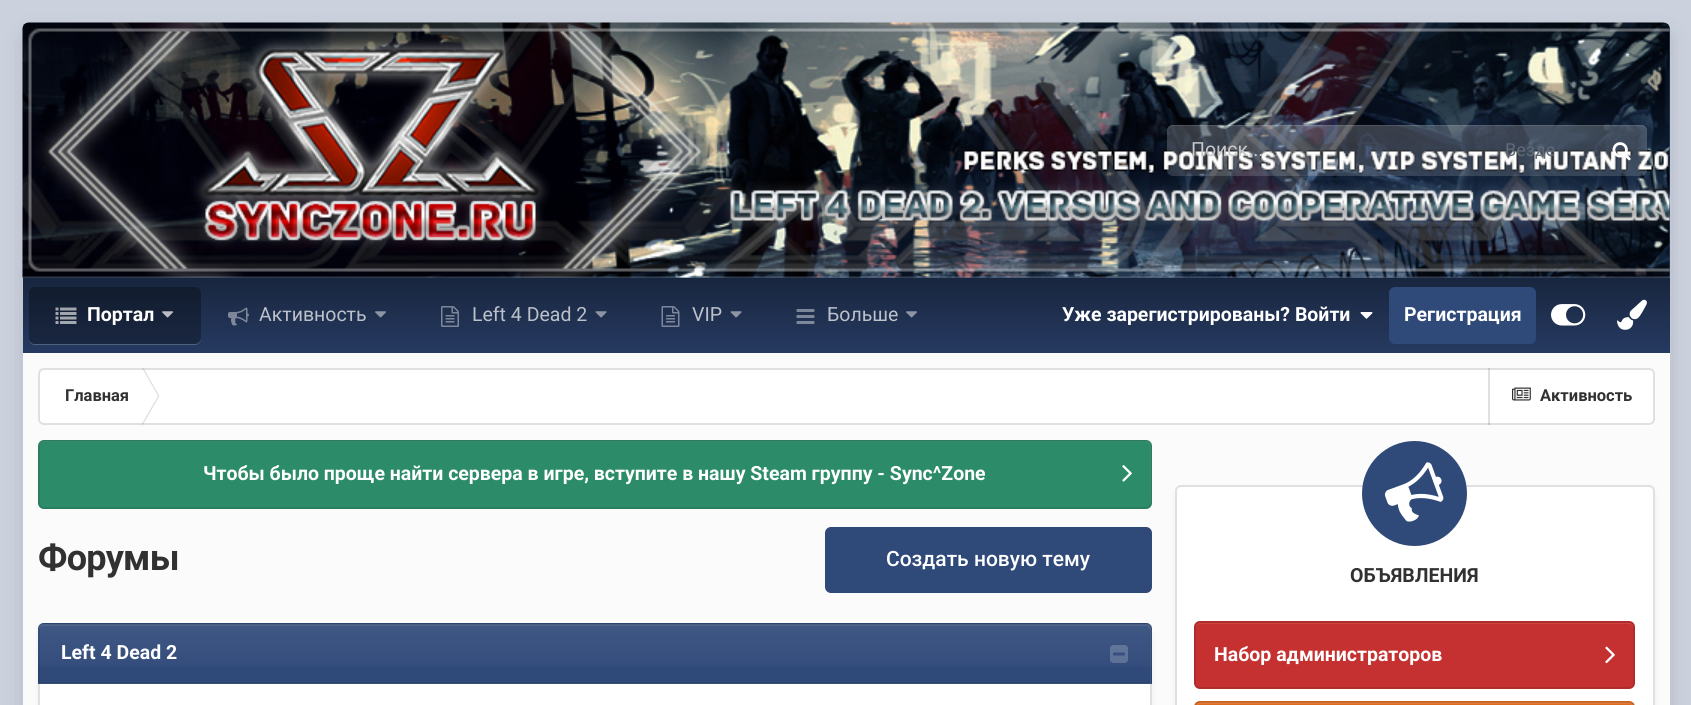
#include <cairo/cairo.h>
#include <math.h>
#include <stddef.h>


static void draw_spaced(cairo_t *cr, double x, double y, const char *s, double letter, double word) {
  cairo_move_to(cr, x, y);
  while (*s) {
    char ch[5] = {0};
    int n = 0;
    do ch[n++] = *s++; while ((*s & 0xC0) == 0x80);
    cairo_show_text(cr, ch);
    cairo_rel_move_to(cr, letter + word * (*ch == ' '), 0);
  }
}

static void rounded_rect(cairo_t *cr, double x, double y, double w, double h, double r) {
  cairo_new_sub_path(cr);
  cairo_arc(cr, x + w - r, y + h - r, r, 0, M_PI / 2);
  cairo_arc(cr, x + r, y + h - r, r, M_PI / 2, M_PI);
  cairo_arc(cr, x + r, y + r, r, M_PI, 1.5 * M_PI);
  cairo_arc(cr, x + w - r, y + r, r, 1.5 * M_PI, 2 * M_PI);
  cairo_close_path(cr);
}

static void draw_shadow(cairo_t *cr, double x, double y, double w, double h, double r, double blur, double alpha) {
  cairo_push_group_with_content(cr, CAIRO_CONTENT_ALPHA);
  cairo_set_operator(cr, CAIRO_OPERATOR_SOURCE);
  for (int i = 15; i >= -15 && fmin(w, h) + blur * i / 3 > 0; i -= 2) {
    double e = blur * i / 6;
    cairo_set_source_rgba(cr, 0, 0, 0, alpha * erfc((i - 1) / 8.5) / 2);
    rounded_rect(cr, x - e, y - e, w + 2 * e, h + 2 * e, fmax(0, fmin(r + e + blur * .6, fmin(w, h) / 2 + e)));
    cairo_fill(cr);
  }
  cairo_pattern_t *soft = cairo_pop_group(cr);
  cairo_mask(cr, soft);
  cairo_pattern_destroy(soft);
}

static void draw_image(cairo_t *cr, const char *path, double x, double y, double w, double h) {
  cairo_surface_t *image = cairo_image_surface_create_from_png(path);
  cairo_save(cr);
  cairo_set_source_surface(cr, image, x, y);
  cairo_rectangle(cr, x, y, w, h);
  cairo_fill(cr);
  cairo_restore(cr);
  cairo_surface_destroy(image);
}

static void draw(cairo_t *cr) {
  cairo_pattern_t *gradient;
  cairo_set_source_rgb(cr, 203 / 255.0, 209 / 255.0, 221 / 255.0);
  cairo_paint(cr);
  cairo_save(cr);
  cairo_set_fill_rule(cr, CAIRO_FILL_RULE_EVEN_ODD);
  cairo_new_path(cr);
  cairo_move_to(cr, 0, 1);
  cairo_line_to(cr, 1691, 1);
  cairo_line_to(cr, 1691, 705);
  cairo_line_to(cr, 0, 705);
  cairo_close_path(cr);
  cairo_move_to(cr, 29, 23);
  cairo_line_to(cr, 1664, 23);
  cairo_curve_to(cr, 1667.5, 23, 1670, 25.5, 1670, 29);
  cairo_line_to(cr, 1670, 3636);
  cairo_curve_to(cr, 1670, 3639.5, 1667.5, 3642, 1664, 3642);
  cairo_line_to(cr, 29, 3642);
  cairo_curve_to(cr, 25.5, 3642, 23, 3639.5, 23, 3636);
  cairo_line_to(cr, 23, 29);
  cairo_curve_to(cr, 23, 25.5, 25.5, 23, 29, 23);
  cairo_close_path(cr);
  cairo_clip(cr);
  cairo_set_source_rgb(cr, 0, 0, 0);
  draw_shadow(cr, 29, 38, 1635, 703, 0, 12, 0.2);
  cairo_restore(cr);
  cairo_set_source_rgba(cr, 1, 1, 1, 0.92);
  rounded_rect(cr, 23, 23, 1647, 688, 6);
  cairo_fill(cr);
  cairo_set_source_rgb(cr, 47 / 255.0, 73 / 255.0, 121 / 255.0);
  cairo_new_path(cr);
  cairo_move_to(cr, 29, 23);
  cairo_line_to(cr, 1664, 23);
  cairo_curve_to(cr, 1667.5, 23, 1670, 25.5, 1670, 29);
  cairo_line_to(cr, 1670, 278);
  cairo_line_to(cr, 23, 278);
  cairo_line_to(cr, 23, 29);
  cairo_curve_to(cr, 23, 25.5, 25.5, 23, 29, 23);
  cairo_close_path(cr);
  cairo_fill(cr);
  draw_image(cr, "images/1.png", 22, 22, 1648, 256);
  cairo_set_source_rgba(cr, 1, 1, 1, 0.1);
  cairo_rectangle(cr, 23, 276, 1647, 2);
  cairo_fill(cr);
  cairo_set_source_rgba(cr, 1, 1, 1, 0.15);
  rounded_rect(cr, 1167, 125, 480, 51, 6);
  cairo_fill(cr);
  gradient = cairo_pattern_create_linear(1407, 124, 1407, 176);
  cairo_pattern_add_color_stop_rgba(gradient, 0, 1, 1, 1, 0.08);
  cairo_pattern_add_color_stop_rgba(gradient, 1, 1, 1, 1, 0);
  cairo_set_source(cr, gradient);
  cairo_pattern_destroy(gradient);
  rounded_rect(cr, 1167, 125, 480, 51, 6);
  cairo_fill(cr);
  cairo_set_source_rgba(cr, 1, 1, 1, 0.1);
  cairo_new_path(cr);
  cairo_move_to(cr, 1173, 126);
  cairo_line_to(cr, 1641, 126);
  cairo_curve_to(cr, 1644, 126, 1647, 129, 1647, 132);
  cairo_curve_to(cr, 1647, 128, 1645, 125, 1641, 125);
  cairo_line_to(cr, 1173, 125);
  cairo_curve_to(cr, 1169, 125, 1167, 128, 1167, 132);
  cairo_curve_to(cr, 1167, 129, 1170, 126, 1173, 126);
  cairo_close_path(cr);
  cairo_fill(cr);
  draw_image(cr, "images/2.png", 1612, 142, 19, 19);
  gradient = cairo_pattern_create_linear(846, 277, 846, 353);
  cairo_pattern_add_color_stop_rgba(gradient, 0, 24 / 255.0, 37 / 255.0, 61 / 255.0, 1);
  cairo_pattern_add_color_stop_rgba(gradient, 1, 38 / 255.0, 58 / 255.0, 97 / 255.0, 1);
  cairo_set_source(cr, gradient);
  cairo_pattern_destroy(gradient);
  cairo_rectangle(cr, 23, 278, 1647, 75);
  cairo_fill(cr);
  cairo_set_source_rgb(cr, 80 / 255.0, 96 / 255.0, 125 / 255.0);
  cairo_new_path(cr);
  cairo_move_to(cr, 29, 340);
  cairo_curve_to(cr, 30, 343, 32, 345, 35, 345);
  cairo_line_to(cr, 195, 345);
  cairo_curve_to(cr, 198, 345, 201, 342, 201, 339);
  cairo_line_to(cr, 201, 338);
  cairo_curve_to(cr, 201, 341, 198, 344, 195, 344);
  cairo_line_to(cr, 34, 344);
  cairo_curve_to(cr, 32, 344, 30, 342, 29, 340);
  cairo_close_path(cr);
  cairo_fill(cr);
  cairo_set_source_rgba(cr, 0, 0, 0, 0.3);
  rounded_rect(cr, 29, 287, 172, 57, 6);
  cairo_fill(cr);
  draw_image(cr, "images/3.png", 55, 307, 22, 17);
  draw_image(cr, "images/4.png", 162, 311, 12, 7);
  draw_image(cr, "images/5.png", 228, 307, 21, 19);
  draw_image(cr, "images/6.png", 375, 311, 11, 7);
  draw_image(cr, "images/7.png", 441, 306, 18, 21);
  draw_image(cr, "images/8.png", 595, 311, 12, 7);
  draw_image(cr, "images/9.png", 661, 306, 19, 21);
  draw_image(cr, "images/8.png", 730, 311, 12, 7);
  draw_image(cr, "images/10.png", 796, 309, 19, 15);
  draw_image(cr, "images/6.png", 906, 311, 11, 7);
  draw_image(cr, "images/11.png", 1360, 312, 13, 7);
  cairo_set_source_rgb(cr, 47 / 255.0, 73 / 255.0, 121 / 255.0);
  rounded_rect(cr, 1389, 287, 147, 57, 6);
  cairo_fill(cr);
  draw_image(cr, "images/12.png", 1551, 304, 35, 22);
  draw_image(cr, "images/13.png", 1617, 299, 30, 31);
  cairo_set_source_rgb(cr, 1, 1, 1);
  rounded_rect(cr, 38, 368, 1617, 57, 6);
  cairo_fill(cr);
  cairo_set_source_rgb(cr, 224 / 255.0, 224 / 255.0, 224 / 255.0);
  cairo_new_path(cr);
  cairo_move_to(cr, 143.5, 368);
  cairo_line_to(cr, 142, 368);
  cairo_line_to(cr, 158, 396);
  cairo_line_to(cr, 159.5, 396);
  cairo_close_path(cr);
  cairo_move_to(cr, 141.5, 424.5);
  cairo_line_to(cr, 143, 424.5);
  cairo_line_to(cr, 159.5, 396);
  cairo_line_to(cr, 158, 396);
  cairo_close_path(cr);
  cairo_fill(cr);
  cairo_rectangle(cr, 1488, 368, 2, 57);
  cairo_fill(cr);
  draw_image(cr, "images/14.png", 1512, 387, 19, 14);
  rounded_rect(cr, 39, 369, 1615, 55, 5);
  cairo_set_source_rgba(cr, 102 / 255.0, 102 / 255.0, 102 / 255.0, 0.2);
  cairo_stroke(cr);
  cairo_set_source_rgb(cr, 44 / 255.0, 140 / 255.0, 105 / 255.0);
  rounded_rect(cr, 38, 440, 1114, 69, 6);
  cairo_fill(cr);
  cairo_set_source_rgb(cr, 65 / 255.0, 152 / 255.0, 120 / 255.0);
  cairo_new_path(cr);
  cairo_move_to(cr, 44, 442);
  cairo_line_to(cr, 1146, 442);
  cairo_curve_to(cr, 1148, 442, 1150, 445, 1150, 447);
  cairo_line_to(cr, 1150, 505);
  cairo_curve_to(cr, 1151, 504, 1151, 503, 1151, 502);
  cairo_line_to(cr, 1151, 446);
  cairo_curve_to(cr, 1151, 443, 1149, 441, 1146, 441);
  cairo_line_to(cr, 44, 441);
  cairo_curve_to(cr, 41, 441, 39, 443, 39, 446);
  cairo_line_to(cr, 39, 447);
  cairo_curve_to(cr, 39, 445, 41, 442, 44, 442);
  cairo_close_path(cr);
  cairo_fill(cr);
  rounded_rect(cr, 39, 441, 1112, 67, 5);
  cairo_set_source_rgba(cr, 0, 0, 0, 0.1);
  cairo_stroke(cr);
  draw_image(cr, "images/15.png", 1122, 465, 10, 17);
  cairo_set_source_rgb(cr, 47 / 255.0, 73 / 255.0, 121 / 255.0);
  rounded_rect(cr, 825, 527, 327, 66, 6);
  cairo_fill(cr);
  cairo_set_source_rgb(cr, 0, 0, 0);
  draw_shadow(cr, 41, 632, 1108, 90, 3, 4.5, 0.1);
  cairo_set_source_rgb(cr, 1, 1, 1);
  rounded_rect(cr, 39, 624, 1112, 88, 5);
  cairo_fill_preserve(cr);
  cairo_set_source_rgb(cr, 224 / 255.0, 224 / 255.0, 224 / 255.0);
  cairo_stroke(cr);
  cairo_set_source_rgb(cr, 47 / 255.0, 73 / 255.0, 121 / 255.0);
  cairo_new_path(cr);
  cairo_move_to(cr, 44, 623);
  cairo_line_to(cr, 1146, 623);
  cairo_curve_to(cr, 1149.5, 623, 1152, 625.5, 1152, 629);
  cairo_line_to(cr, 1152, 684);
  cairo_line_to(cr, 38, 684);
  cairo_line_to(cr, 38, 629);
  cairo_curve_to(cr, 38, 625.5, 40.5, 623, 44, 623);
  cairo_close_path(cr);
  cairo_fill(cr);
  cairo_save(cr);
  cairo_new_path(cr);
  cairo_move_to(cr, 44, 623);
  cairo_line_to(cr, 1146, 623);
  cairo_curve_to(cr, 1149.5, 623, 1152, 625.5, 1152, 629);
  cairo_line_to(cr, 1152, 684);
  cairo_line_to(cr, 38, 684);
  cairo_line_to(cr, 38, 629);
  cairo_curve_to(cr, 38, 625.5, 40.5, 623, 44, 623);
  cairo_close_path(cr);
  cairo_clip(cr);
  gradient = cairo_pattern_create_linear(595, 624, 595, 683);
  cairo_pattern_add_color_stop_rgba(gradient, 0, 1, 1, 1, 0.08);
  cairo_pattern_add_color_stop_rgba(gradient, 1, 1, 1, 1, 0);
  cairo_set_source(cr, gradient);
  cairo_pattern_destroy(gradient);
  cairo_rectangle(cr, 38, 624, 1114, 43);
  cairo_fill(cr);
  cairo_restore(cr);
  gradient = cairo_pattern_create_linear(595, 682, 595, 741);
  cairo_pattern_add_color_stop_rgba(gradient, 0, 64 / 255.0, 88 / 255.0, 132 / 255.0, 1);
  cairo_pattern_add_color_stop_rgba(gradient, 1, 47 / 255.0, 73 / 255.0, 121 / 255.0, 1);
  cairo_set_source(cr, gradient);
  cairo_pattern_destroy(gradient);
  cairo_rectangle(cr, 38, 683, 1114, 1);
  cairo_fill(cr);
  cairo_set_source_rgba(cr, 1, 1, 1, 0.1);
  cairo_new_path(cr);
  cairo_move_to(cr, 44, 626);
  cairo_line_to(cr, 1146, 626);
  cairo_curve_to(cr, 1148, 626, 1150, 628, 1150, 630);
  cairo_line_to(cr, 1150, 683);
  cairo_line_to(cr, 1151, 683);
  cairo_line_to(cr, 1151, 629);
  cairo_curve_to(cr, 1151, 626, 1149, 624, 1146, 624);
  cairo_line_to(cr, 44, 624);
  cairo_curve_to(cr, 41, 624, 39, 626, 39, 629);
  cairo_line_to(cr, 39, 630);
  cairo_curve_to(cr, 39, 628, 41, 626, 44, 626);
  cairo_close_path(cr);
  cairo_fill(cr);
  cairo_new_path(cr);
  cairo_move_to(cr, 44, 624);
  cairo_line_to(cr, 1146, 624);
  cairo_curve_to(cr, 1149, 624, 1151, 626, 1151, 629);
  cairo_line_to(cr, 1151, 683);
  cairo_line_to(cr, 39, 683);
  cairo_line_to(cr, 39, 629);
  cairo_curve_to(cr, 39, 626, 41, 624, 44, 624);
  cairo_close_path(cr);
  cairo_set_source_rgba(cr, 0, 0, 0, 0.1);
  cairo_stroke(cr);
  draw_image(cr, "images/16.png", 1110, 645, 18, 18);
  cairo_set_source_rgb(cr, 0, 0, 0);
  draw_shadow(cr, 1178, 494, 474, 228, 3, 4.5, 0.1);
  cairo_set_source_rgb(cr, 1, 1, 1);
  rounded_rect(cr, 1176, 486, 478, 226, 5);
  cairo_fill_preserve(cr);
  cairo_set_source_rgb(cr, 224 / 255.0, 224 / 255.0, 224 / 255.0);
  cairo_stroke(cr);
  cairo_set_source_rgb(cr, 47 / 255.0, 73 / 255.0, 121 / 255.0);
  cairo_arc(cr, 1414.5, 493.5, 52.5, 0, 2 * M_PI);
  cairo_fill(cr);
  draw_image(cr, "images/17.png", 1384, 462, 60, 60);
  cairo_set_source_rgb(cr, 197 / 255.0, 48 / 255.0, 48 / 255.0);
  rounded_rect(cr, 1194, 621, 441, 68, 6);
  cairo_fill(cr);
  cairo_set_source_rgb(cr, 203 / 255.0, 69 / 255.0, 69 / 255.0);
  cairo_new_path(cr);
  cairo_move_to(cr, 1200, 624);
  cairo_line_to(cr, 1629, 624);
  cairo_curve_to(cr, 1631, 624, 1634, 626, 1634, 628);
  cairo_curve_to(cr, 1634, 625, 1632, 623, 1629, 623);
  cairo_line_to(cr, 1201, 623);
  cairo_curve_to(cr, 1198, 623, 1196, 625, 1196, 628);
  cairo_curve_to(cr, 1196, 626, 1198, 624, 1200, 624);
  cairo_close_path(cr);
  cairo_fill(cr);
  rounded_rect(cr, 1195, 622, 439, 66, 5);
  cairo_set_source_rgba(cr, 0, 0, 0, 0.1);
  cairo_stroke(cr);
  draw_image(cr, "images/18.png", 1605, 646, 10, 18);
  cairo_set_source_rgb(cr, 221 / 255.0, 107 / 255.0, 32 / 255.0);
  rounded_rect(cr, 1194, 701, 441, 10, 6);
  cairo_fill(cr);
  cairo_set_source_rgb(cr, 224 / 255.0, 122 / 255.0, 54 / 255.0);
  cairo_new_path(cr);
  cairo_move_to(cr, 1200, 704);
  cairo_line_to(cr, 1629, 704);
  cairo_curve_to(cr, 1631, 704, 1634, 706, 1634, 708);
  cairo_curve_to(cr, 1634, 705, 1632, 702, 1629, 702);
  cairo_line_to(cr, 1201, 702);
  cairo_curve_to(cr, 1198, 702, 1196, 705, 1196, 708);
  cairo_curve_to(cr, 1196, 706, 1198, 704, 1200, 704);
  cairo_close_path(cr);
  cairo_fill(cr);
  rounded_rect(cr, 1195, 702, 439, 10, 5);
  cairo_set_source_rgba(cr, 0, 0, 0, 0.1);
  cairo_stroke(cr);
  cairo_select_font_face(cr, "Roboto", CAIRO_FONT_SLANT_NORMAL, CAIRO_FONT_WEIGHT_NORMAL);
  cairo_set_font_size(cr, 19.5);
  cairo_set_source_rgb(cr, 200 / 255.0, 201 / 255.0, 204 / 255.0);
  cairo_move_to(cr, 1191, 156);
  cairo_show_text(cr, "Поиск...");
  cairo_set_font_size(cr, 18);
  cairo_set_source_rgb(cr, 96 / 255.0, 105 / 255.0, 118 / 255.0);
  cairo_move_to(cr, 1505, 156);
  cairo_show_text(cr, "Везде");
  cairo_select_font_face(cr, "Roboto", CAIRO_FONT_SLANT_NORMAL, CAIRO_FONT_WEIGHT_BOLD);
  cairo_set_font_size(cr, 19.5);
  cairo_set_source_rgb(cr, 1, 1, 1);
  cairo_move_to(cr, 87, 321);
  cairo_show_text(cr, "Портал");
  cairo_select_font_face(cr, "Roboto", CAIRO_FONT_SLANT_NORMAL, CAIRO_FONT_WEIGHT_NORMAL);
  cairo_set_source_rgb(cr, 188 / 255.0, 193 / 255.0, 202 / 255.0);
  cairo_move_to(cr, 259, 321);
  cairo_show_text(cr, "Активность");
  cairo_move_to(cr, 472, 321);
  cairo_show_text(cr, "Left 4 Dead 2");
  cairo_move_to(cr, 692, 321);
  cairo_show_text(cr, "VIP");
  cairo_move_to(cr, 827, 321);
  cairo_show_text(cr, "Больше");
  cairo_select_font_face(cr, "Roboto", CAIRO_FONT_SLANT_NORMAL, CAIRO_FONT_WEIGHT_BOLD);
  cairo_set_source_rgb(cr, 1, 1, 1);
  cairo_move_to(cr, 1062, 321);
  cairo_show_text(cr, "Уже зарегистрированы? Войти");
  cairo_move_to(cr, 1404, 321);
  cairo_show_text(cr, "Регистрация");
  cairo_set_font_size(cr, 16.5);
  cairo_set_source_rgb(cr, 49 / 255.0, 49 / 255.0, 49 / 255.0);
  cairo_move_to(cr, 65, 401);
  cairo_show_text(cr, "Главная");
  cairo_move_to(cr, 1540, 401);
  cairo_show_text(cr, "Активность");
  cairo_set_font_size(cr, 19.5);
  cairo_set_source_rgb(cr, 1, 1, 1);
  cairo_move_to(cr, 203, 480);
  cairo_show_text(cr, "Чтобы было проще найти сервера в игре, вступите в нашу Steam группу - Sync^Zone");
  cairo_set_font_size(cr, 36);
  cairo_set_source_rgb(cr, 49 / 255.0, 49 / 255.0, 49 / 255.0);
  draw_spaced(cr, 38, 570, "Форумы", -0.75, 0);
  cairo_select_font_face(cr, "Roboto Medium", CAIRO_FONT_SLANT_NORMAL, CAIRO_FONT_WEIGHT_NORMAL);
  cairo_set_font_size(cr, 21);
  cairo_set_source_rgb(cr, 1, 1, 1);
  cairo_move_to(cr, 886, 566);
  cairo_show_text(cr, "Создать новую тему");
  cairo_select_font_face(cr, "Roboto", CAIRO_FONT_SLANT_NORMAL, CAIRO_FONT_WEIGHT_BOLD);
  cairo_set_font_size(cr, 19.5);
  cairo_move_to(cr, 61, 659);
  cairo_show_text(cr, "Left 4 Dead 2");
  cairo_set_source_rgb(cr, 49 / 255.0, 49 / 255.0, 49 / 255.0);
  cairo_move_to(cr, 1350, 582);
  cairo_show_text(cr, "ОБЪЯВЛЕНИЯ");
  cairo_set_source_rgb(cr, 1, 1, 1);
  cairo_move_to(cr, 1214, 661);
  cairo_show_text(cr, "Набор администраторов");
}

int main(void) {
  cairo_surface_t *surface = cairo_image_surface_create(CAIRO_FORMAT_RGB24, 1691, 705);
  cairo_t *cr = cairo_create(surface);
  cairo_font_options_t *options = cairo_font_options_create();
  cairo_font_options_set_hint_metrics(options, CAIRO_HINT_METRICS_OFF);
  cairo_font_options_set_hint_style(options, CAIRO_HINT_STYLE_NONE);
  cairo_set_font_options(cr, options);
  cairo_set_miter_limit(cr, 4);
  draw(cr);
  cairo_surface_write_to_png(surface, "out.png");
  cairo_font_options_destroy(options);
  cairo_destroy(cr);
  cairo_surface_destroy(surface);
  return 0;
}
